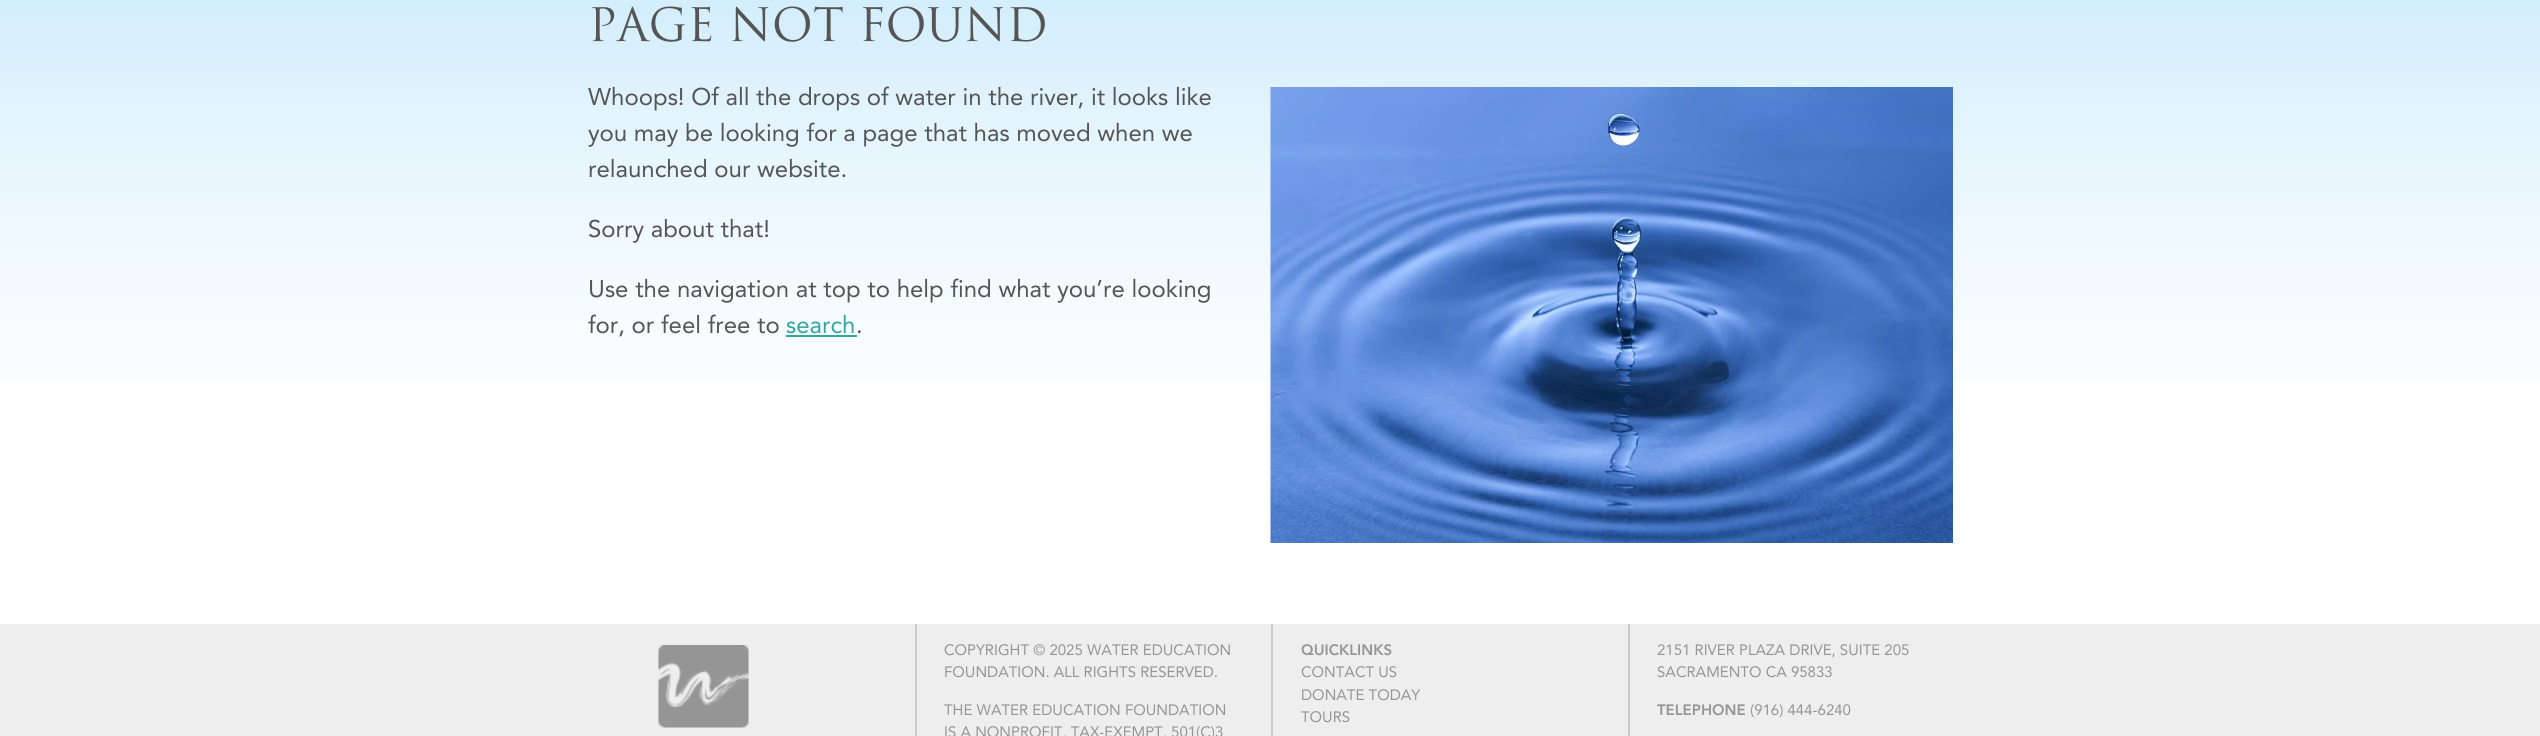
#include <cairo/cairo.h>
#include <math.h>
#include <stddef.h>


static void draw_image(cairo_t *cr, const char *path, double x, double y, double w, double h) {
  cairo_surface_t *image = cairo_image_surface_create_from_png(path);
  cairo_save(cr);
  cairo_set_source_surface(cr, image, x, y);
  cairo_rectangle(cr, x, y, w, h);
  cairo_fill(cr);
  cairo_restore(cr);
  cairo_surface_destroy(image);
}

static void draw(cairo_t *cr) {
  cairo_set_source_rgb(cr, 238 / 255.0, 238 / 255.0, 238 / 255.0);
  cairo_paint(cr);
  cairo_set_source_rgb(cr, 1, 1, 1);
  cairo_rectangle(cr, 0, 382, 2540, 242);
  cairo_fill(cr);
  draw_image(cr, "images/1.png", 0, 0, 2540, 382);
  cairo_set_source_rgb(cr, 51 / 255.0, 166 / 255.0, 164 / 255.0);
  cairo_rectangle(cr, 786, 335, 71, 2);
  cairo_fill(cr);
  draw_image(cr, "images/2.png", 1270, 87, 683, 456);
  draw_image(cr, "images/3.png", 658, 645, 91, 83);
  cairo_set_source_rgb(cr, 204 / 255.0, 204 / 255.0, 204 / 255.0);
  cairo_rectangle(cr, 915, 624, 2, 112);
  cairo_fill(cr);
  cairo_rectangle(cr, 1271, 624, 2, 112);
  cairo_fill(cr);
  cairo_rectangle(cr, 1628, 624, 2, 112);
  cairo_fill(cr);
  cairo_select_font_face(cr, "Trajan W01", CAIRO_FONT_SLANT_NORMAL, CAIRO_FONT_WEIGHT_NORMAL);
  cairo_set_font_size(cr, 45);
  cairo_set_source_rgb(cr, 85 / 255.0, 85 / 255.0, 85 / 255.0);
  cairo_move_to(cr, 588, 41);
  cairo_show_text(cr, "PAGE NOT FOUND");
  cairo_select_font_face(cr, "Avenir", CAIRO_FONT_SLANT_NORMAL, CAIRO_FONT_WEIGHT_NORMAL);
  cairo_set_font_size(cr, 24);
  cairo_move_to(cr, 588, 105);
  cairo_show_text(cr, "Whoops! Of all the drops of water in the river, it looks like");
  cairo_move_to(cr, 588, 141);
  cairo_show_text(cr, "you may be looking for a page that has moved when we");
  cairo_move_to(cr, 588, 177);
  cairo_show_text(cr, "relaunched our website.");
  cairo_move_to(cr, 588, 237);
  cairo_show_text(cr, "Sorry about that!");
  cairo_move_to(cr, 588, 297);
  cairo_show_text(cr, "Use the navigation at top to help find what you’re looking");
  cairo_move_to(cr, 588, 333);
  cairo_show_text(cr, "for, or feel free to");
  cairo_set_source_rgb(cr, 51 / 255.0, 166 / 255.0, 164 / 255.0);
  cairo_move_to(cr, 786, 333);
  cairo_show_text(cr, "search");
  cairo_set_source_rgb(cr, 85 / 255.0, 85 / 255.0, 85 / 255.0);
  cairo_move_to(cr, 856, 333);
  cairo_show_text(cr, ".");
  cairo_set_font_size(cr, 15);
  cairo_set_source_rgb(cr, 149 / 255.0, 149 / 255.0, 149 / 255.0);
  cairo_move_to(cr, 944, 655);
  cairo_show_text(cr, "COPYRIGHT © 2025 WATER EDUCATION");
  cairo_move_to(cr, 944, 677);
  cairo_show_text(cr, "FOUNDATION. ALL RIGHTS RESERVED.");
  cairo_move_to(cr, 944, 715);
  cairo_show_text(cr, "THE WATER EDUCATION FOUNDATION");
  cairo_move_to(cr, 944, 737);
  cairo_show_text(cr, "IS A NONPROFIT, TAX-EXEMPT, 501(C)3");
  cairo_move_to(cr, 1657, 655);
  cairo_show_text(cr, "2151 RIVER PLAZA DRIVE, SUITE 205");
  cairo_move_to(cr, 1657, 677);
  cairo_show_text(cr, "SACRAMENTO CA 95833");
  cairo_select_font_face(cr, "Avenir Black", CAIRO_FONT_SLANT_NORMAL, CAIRO_FONT_WEIGHT_NORMAL);
  cairo_move_to(cr, 1657, 715);
  cairo_show_text(cr, "TELEPHONE");
  cairo_select_font_face(cr, "Avenir", CAIRO_FONT_SLANT_NORMAL, CAIRO_FONT_WEIGHT_NORMAL);
  cairo_move_to(cr, 1750, 715);
  cairo_show_text(cr, "(916) 444-6240");
  cairo_select_font_face(cr, "Avenir Black", CAIRO_FONT_SLANT_NORMAL, CAIRO_FONT_WEIGHT_NORMAL);
  cairo_move_to(cr, 1301, 655);
  cairo_show_text(cr, "QUICKLINKS");
  cairo_select_font_face(cr, "Avenir", CAIRO_FONT_SLANT_NORMAL, CAIRO_FONT_WEIGHT_NORMAL);
  cairo_move_to(cr, 1301, 677);
  cairo_show_text(cr, "CONTACT US");
  cairo_move_to(cr, 1301, 700);
  cairo_show_text(cr, "DONATE TODAY");
  cairo_move_to(cr, 1301, 722);
  cairo_show_text(cr, "TOURS");
}

int main(void) {
  cairo_surface_t *surface = cairo_image_surface_create(CAIRO_FORMAT_RGB24, 2540, 736);
  cairo_t *cr = cairo_create(surface);
  cairo_font_options_t *options = cairo_font_options_create();
  cairo_font_options_set_hint_metrics(options, CAIRO_HINT_METRICS_OFF);
  cairo_font_options_set_hint_style(options, CAIRO_HINT_STYLE_NONE);
  cairo_set_font_options(cr, options);
  cairo_set_miter_limit(cr, 4);
  draw(cr);
  cairo_surface_write_to_png(surface, "out.png");
  cairo_font_options_destroy(options);
  cairo_destroy(cr);
  cairo_surface_destroy(surface);
  return 0;
}
